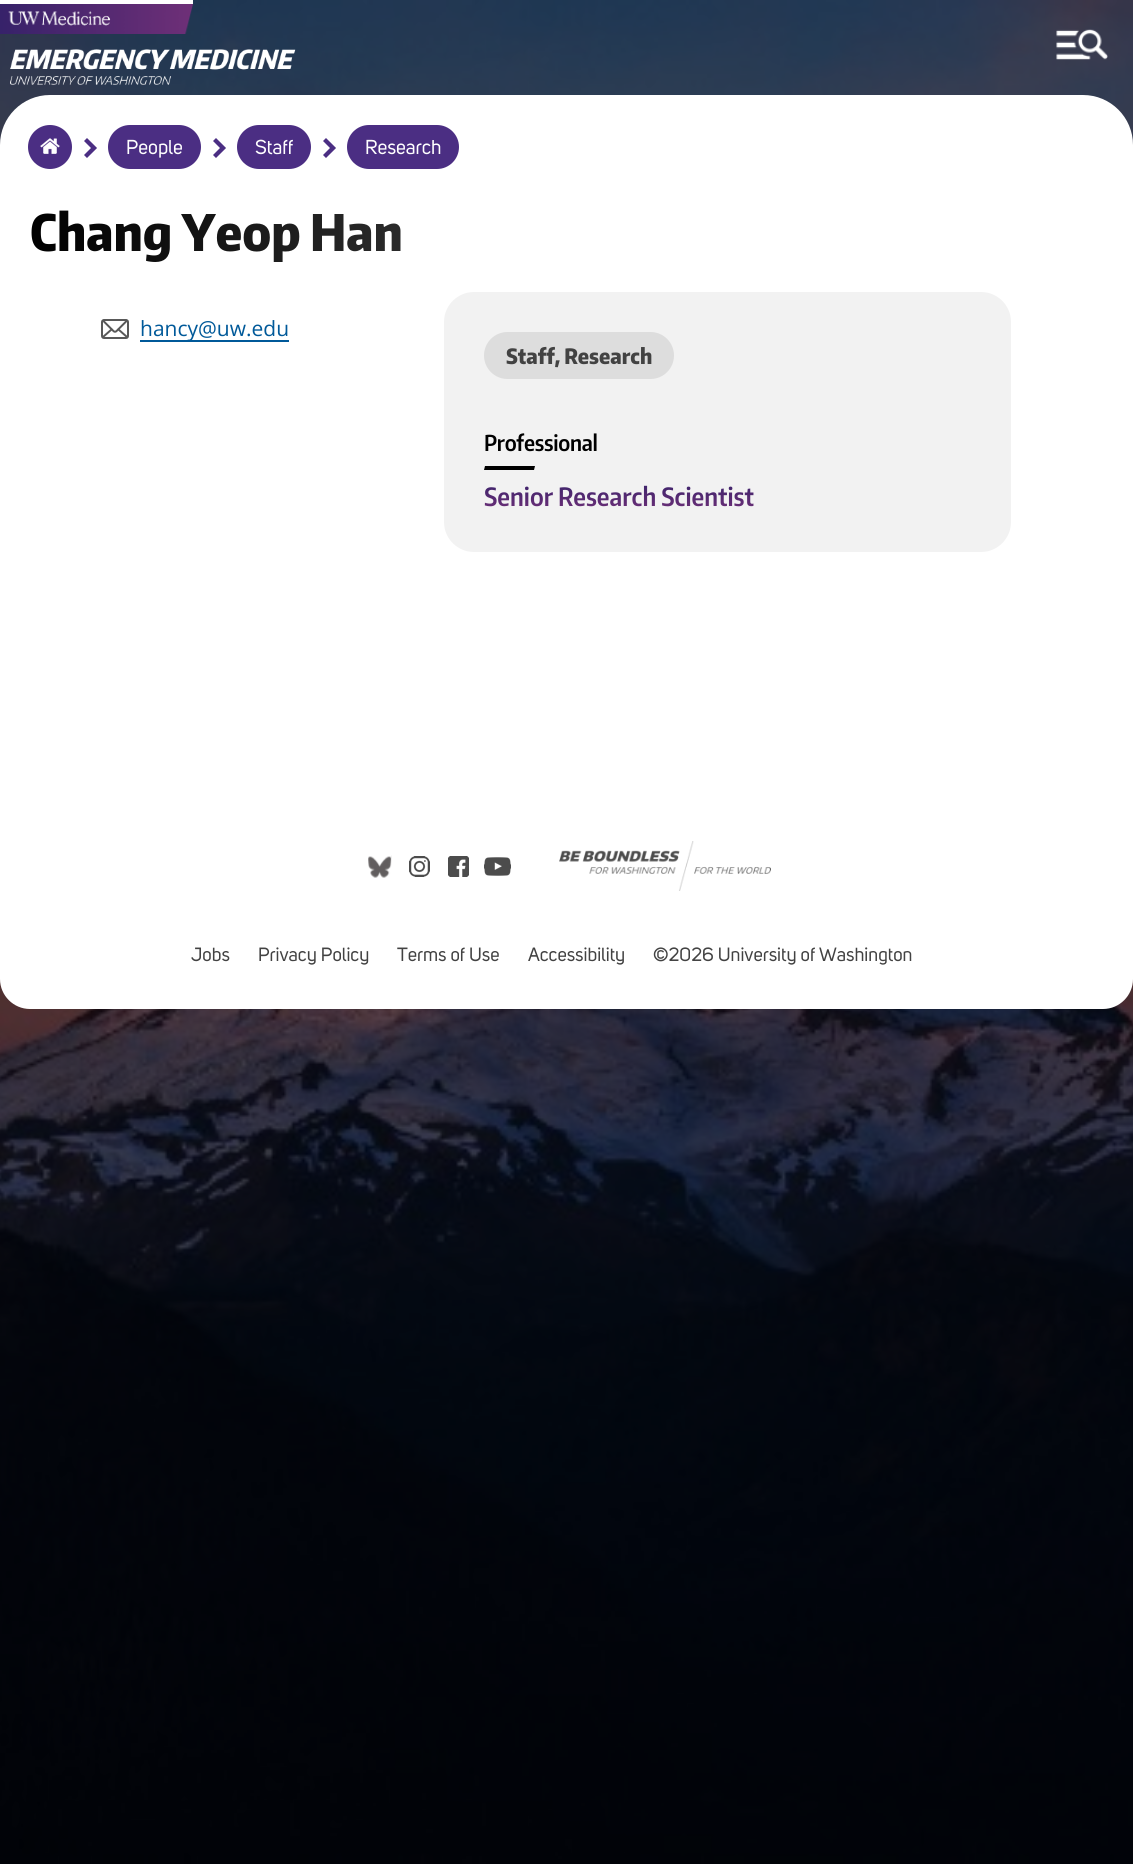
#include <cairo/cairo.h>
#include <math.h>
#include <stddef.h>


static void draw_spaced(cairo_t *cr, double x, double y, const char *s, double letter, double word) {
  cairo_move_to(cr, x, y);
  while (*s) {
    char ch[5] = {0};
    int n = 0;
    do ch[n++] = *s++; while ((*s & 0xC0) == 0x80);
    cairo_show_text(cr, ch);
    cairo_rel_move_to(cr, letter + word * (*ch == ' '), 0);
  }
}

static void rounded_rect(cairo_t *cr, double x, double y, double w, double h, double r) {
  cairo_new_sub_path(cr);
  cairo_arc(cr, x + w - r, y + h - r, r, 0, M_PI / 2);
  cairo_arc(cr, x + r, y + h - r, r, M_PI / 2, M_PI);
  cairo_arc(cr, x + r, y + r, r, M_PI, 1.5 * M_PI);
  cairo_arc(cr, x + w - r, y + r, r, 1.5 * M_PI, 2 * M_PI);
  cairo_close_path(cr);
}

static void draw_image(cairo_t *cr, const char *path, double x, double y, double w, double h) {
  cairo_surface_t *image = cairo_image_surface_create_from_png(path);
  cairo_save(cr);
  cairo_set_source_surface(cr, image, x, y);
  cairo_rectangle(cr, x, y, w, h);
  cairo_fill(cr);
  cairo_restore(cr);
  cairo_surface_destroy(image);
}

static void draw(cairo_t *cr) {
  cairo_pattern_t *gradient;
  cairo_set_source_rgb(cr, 0, 0, 0);
  cairo_paint(cr);
  draw_image(cr, "images/2.png", 0, 0, 1133, 1864);
  draw_image(cr, "images/1.png", 1056, 29, 52, 31);
  cairo_set_source_rgb(cr, 1, 1, 1);
  cairo_rectangle(cr, 0, 0, 193, 4);
  cairo_fill(cr);
  draw_image(cr, "images/3.png", 0, 4, 193, 30);
  draw_image(cr, "images/4.png", 10, 49, 286, 36);
  rounded_rect(cr, 0, 95, 1133, 736, 50);
  cairo_fill(cr);
  cairo_set_source_rgb(cr, 75 / 255.0, 46 / 255.0, 131 / 255.0);
  cairo_arc(cr, 50, 147, 22, 0, 2 * M_PI);
  cairo_fill(cr);
  draw_image(cr, "images/5.png", 40, 138, 20, 16);
  draw_image(cr, "images/6.png", 84, 138, 13, 20);
  rounded_rect(cr, 108, 125, 93, 44, 22);
  cairo_fill(cr);
  draw_image(cr, "images/6.png", 213, 138, 13, 20);
  rounded_rect(cr, 237, 125, 74, 44, 22);
  cairo_fill(cr);
  draw_image(cr, "images/6.png", 323, 138, 13, 20);
  rounded_rect(cr, 347, 125, 112, 44, 22);
  cairo_fill(cr);
  draw_image(cr, "images/7.png", 101, 319, 28, 20);
  cairo_set_source_rgb(cr, 0, 89 / 255.0, 153 / 255.0);
  cairo_rectangle(cr, 140, 340, 149, 2);
  cairo_fill(cr);
  cairo_set_source_rgb(cr, 242 / 255.0, 242 / 255.0, 242 / 255.0);
  rounded_rect(cr, 444, 292, 567, 260, 30);
  cairo_fill(cr);
  cairo_set_source_rgb(cr, 221 / 255.0, 221 / 255.0, 221 / 255.0);
  rounded_rect(cr, 484, 332, 190, 47, 23.5);
  cairo_fill(cr);
  cairo_set_source_rgb(cr, 0, 0, 0);
  cairo_new_path(cr);
  cairo_move_to(cr, 485, 466);
  cairo_line_to(cr, 535, 466);
  cairo_line_to(cr, 534, 470);
  cairo_line_to(cr, 484, 470);
  cairo_close_path(cr);
  cairo_fill(cr);
  cairo_set_source_rgb(cr, 1, 1, 1);
  cairo_new_path(cr);
  cairo_move_to(cr, 0, 771);
  cairo_line_to(cr, 1133, 771);
  cairo_line_to(cr, 1133, 979);
  cairo_curve_to(cr, 1133, 995.5, 1119.5, 1009, 1103, 1009);
  cairo_line_to(cr, 30, 1009);
  cairo_curve_to(cr, 13.5, 1009, 0, 995.5, 0, 979);
  cairo_close_path(cr);
  cairo_fill(cr);
  draw_image(cr, "images/8.png", 368, 855, 24, 23);
  draw_image(cr, "images/9.png", 409, 856, 21, 21);
  draw_image(cr, "images/10.png", 448, 856, 21, 21);
  draw_image(cr, "images/11.png", 484, 857, 27, 19);
  draw_image(cr, "images/12.png", 559, 841, 212, 50);
  cairo_select_font_face(cr, "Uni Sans", CAIRO_FONT_SLANT_NORMAL, CAIRO_FONT_WEIGHT_NORMAL);
  cairo_set_font_size(cr, 20);
  cairo_move_to(cr, 126, 154);
  cairo_show_text(cr, "People");
  cairo_move_to(cr, 255, 154);
  cairo_show_text(cr, "Staff");
  cairo_move_to(cr, 365, 154);
  cairo_show_text(cr, "Research");
  cairo_select_font_face(cr, "Encode Sans Condensed ExtraBold", CAIRO_FONT_SLANT_NORMAL, CAIRO_FONT_WEIGHT_NORMAL);
  cairo_set_font_size(cr, 50);
  gradient = cairo_pattern_create_linear(30, 220, 1004, 221);
  cairo_pattern_add_color_stop_rgba(gradient, 0, 0, 0, 0, 1);
  cairo_pattern_add_color_stop_rgba(gradient, 1, 112 / 255.0, 112 / 255.0, 112 / 255.0, 1);
  cairo_set_source(cr, gradient);
  cairo_pattern_destroy(gradient);
  cairo_move_to(cr, 30, 251);
  cairo_show_text(cr, "Chang Yeop Han");
  cairo_select_font_face(cr, "Open Sans", CAIRO_FONT_SLANT_NORMAL, CAIRO_FONT_WEIGHT_NORMAL);
  cairo_set_font_size(cr, 21);
  cairo_set_source_rgb(cr, 0, 89 / 255.0, 153 / 255.0);
  cairo_move_to(cr, 140, 336);
  cairo_show_text(cr, "hancy@uw.edu");
  cairo_select_font_face(cr, "Encode Sans Condensed ExtraBold", CAIRO_FONT_SLANT_NORMAL, CAIRO_FONT_WEIGHT_NORMAL);
  cairo_set_source_rgb(cr, 66 / 255.0, 66 / 255.0, 66 / 255.0);
  cairo_move_to(cr, 506, 364);
  cairo_show_text(cr, "Staff, Research");
  cairo_select_font_face(cr, "Encode Sans Condensed SemiBold", CAIRO_FONT_SLANT_NORMAL, CAIRO_FONT_WEIGHT_NORMAL);
  cairo_set_font_size(cr, 21.75);
  cairo_set_source_rgb(cr, 0, 0, 0);
  draw_spaced(cr, 484, 451, "Professional", -0.25, 0);
  cairo_set_font_size(cr, 25);
  gradient = cairo_pattern_create_linear(727, 480, 727, 512);
  cairo_pattern_add_color_stop_rgba(gradient, 0, 55 / 255.0, 34 / 255.0, 106 / 255.0, 1);
  cairo_pattern_add_color_stop_rgba(gradient, 1, 111 / 255.0, 48 / 255.0, 120 / 255.0, 1);
  cairo_set_source(cr, gradient);
  cairo_pattern_destroy(gradient);
  cairo_move_to(cr, 484, 506);
  cairo_show_text(cr, "Senior Research Scientist");
  cairo_select_font_face(cr, "Uni Sans", CAIRO_FONT_SLANT_NORMAL, CAIRO_FONT_WEIGHT_NORMAL);
  cairo_set_font_size(cr, 19);
  cairo_set_source_rgb(cr, 66 / 255.0, 66 / 255.0, 66 / 255.0);
  cairo_move_to(cr, 191, 961);
  cairo_show_text(cr, "Jobs");
  cairo_move_to(cr, 258, 961);
  cairo_show_text(cr, "Privacy Policy");
  cairo_move_to(cr, 397, 961);
  cairo_show_text(cr, "Terms of Use");
  cairo_move_to(cr, 528, 961);
  cairo_show_text(cr, "Accessibility");
  cairo_move_to(cr, 653, 961);
  cairo_show_text(cr, "©2026 University of Washington");
}

int main(void) {
  cairo_surface_t *surface = cairo_image_surface_create(CAIRO_FORMAT_RGB24, 1133, 1864);
  cairo_t *cr = cairo_create(surface);
  cairo_font_options_t *options = cairo_font_options_create();
  cairo_font_options_set_hint_metrics(options, CAIRO_HINT_METRICS_OFF);
  cairo_font_options_set_hint_style(options, CAIRO_HINT_STYLE_NONE);
  cairo_set_font_options(cr, options);
  cairo_set_miter_limit(cr, 4);
  draw(cr);
  cairo_surface_write_to_png(surface, "out.png");
  cairo_font_options_destroy(options);
  cairo_destroy(cr);
  cairo_surface_destroy(surface);
  return 0;
}
